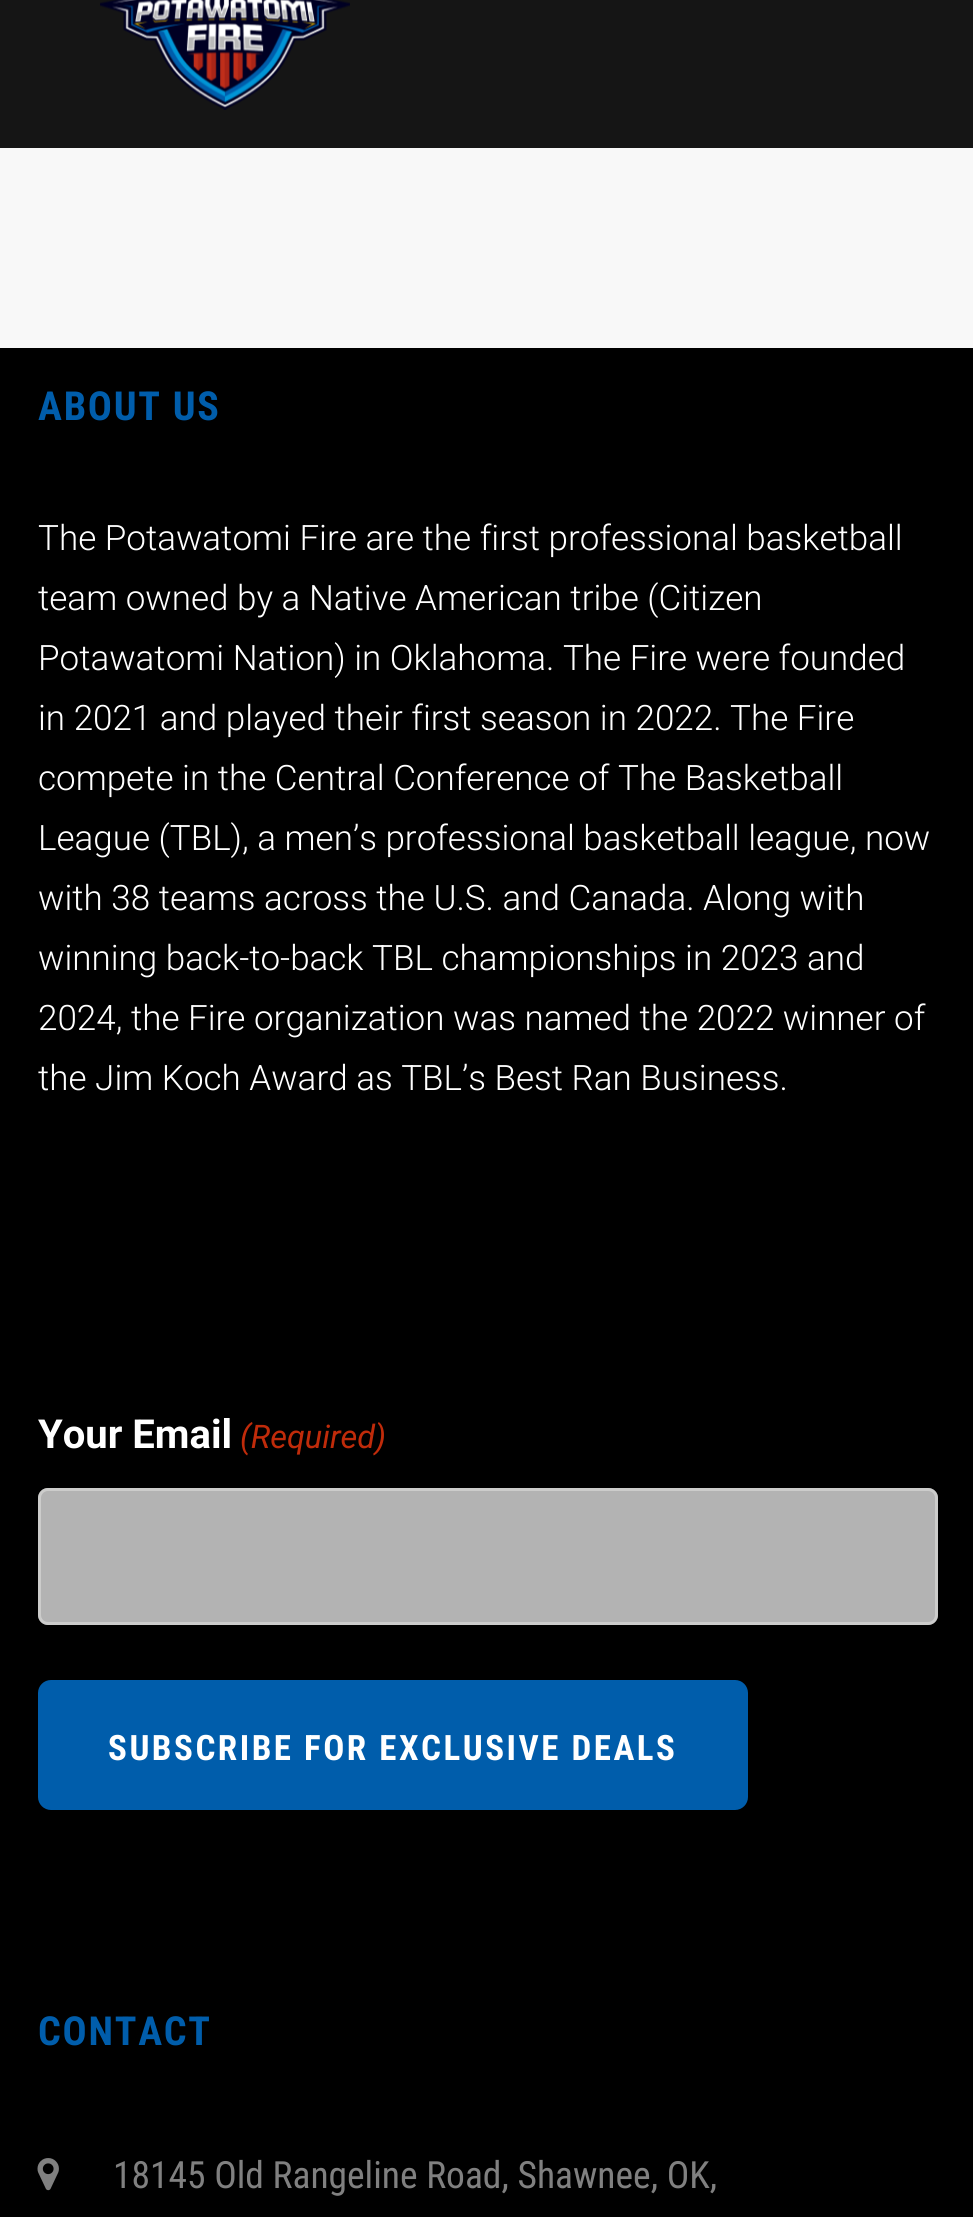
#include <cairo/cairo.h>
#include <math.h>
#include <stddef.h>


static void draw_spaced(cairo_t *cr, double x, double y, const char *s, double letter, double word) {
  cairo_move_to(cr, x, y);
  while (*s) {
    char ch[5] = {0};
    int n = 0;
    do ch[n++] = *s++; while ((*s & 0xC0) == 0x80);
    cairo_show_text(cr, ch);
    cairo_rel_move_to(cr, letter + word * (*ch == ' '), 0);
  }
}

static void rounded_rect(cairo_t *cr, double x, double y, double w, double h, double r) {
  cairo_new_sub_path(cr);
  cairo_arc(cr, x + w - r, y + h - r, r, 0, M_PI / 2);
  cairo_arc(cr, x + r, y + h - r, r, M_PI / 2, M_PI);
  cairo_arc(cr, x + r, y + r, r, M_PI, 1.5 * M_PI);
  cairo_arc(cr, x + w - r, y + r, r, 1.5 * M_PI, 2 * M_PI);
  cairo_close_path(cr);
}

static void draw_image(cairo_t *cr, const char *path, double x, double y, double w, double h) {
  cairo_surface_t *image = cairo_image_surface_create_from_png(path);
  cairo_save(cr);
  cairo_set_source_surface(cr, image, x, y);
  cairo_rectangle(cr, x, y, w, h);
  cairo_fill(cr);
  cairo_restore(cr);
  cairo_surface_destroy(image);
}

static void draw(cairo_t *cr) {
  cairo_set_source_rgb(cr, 0, 0, 0);
  cairo_paint(cr);
  cairo_set_source_rgb(cr, 248 / 255.0, 248 / 255.0, 248 / 255.0);
  cairo_rectangle(cr, 0, 148, 973, 200);
  cairo_fill(cr);
  cairo_set_source_rgb(cr, 21 / 255.0, 21 / 255.0, 21 / 255.0);
  cairo_rectangle(cr, 0, 0, 973, 148);
  cairo_fill(cr);
  draw_image(cr, "images/1.png", 100, 0, 250, 110);
  cairo_set_source_rgb(cr, 179 / 255.0, 179 / 255.0, 179 / 255.0);
  rounded_rect(cr, 38, 1488, 900, 137, 10);
  cairo_fill(cr);
  rounded_rect(cr, 39.5, 1489.5, 897, 134, 8.5);
  cairo_set_source_rgba(cr, 215 / 255.0, 215 / 255.0, 214 / 255.0, 0.7);
  cairo_set_line_width(cr, 3);
  cairo_stroke(cr);
  cairo_set_source_rgb(cr, 0, 93 / 255.0, 171 / 255.0);
  rounded_rect(cr, 40.5, 1682.5, 705, 125, 10.5);
  cairo_fill_preserve(cr);
  cairo_set_line_width(cr, 5);
  cairo_stroke(cr);
  draw_image(cr, "images/2.png", 37, 2158, 22, 33);
  cairo_select_font_face(cr, "Roboto Condensed", CAIRO_FONT_SLANT_NORMAL, CAIRO_FONT_WEIGHT_BOLD);
  cairo_set_font_size(cr, 40);
  draw_spaced(cr, 38, 420, "ABOUT US", 1.75, 0);
  cairo_select_font_face(cr, "Roboto Light", CAIRO_FONT_SLANT_NORMAL, CAIRO_FONT_WEIGHT_NORMAL);
  cairo_set_font_size(cr, 35);
  cairo_set_source_rgb(cr, 1, 1, 1);
  cairo_move_to(cr, 38, 550);
  cairo_show_text(cr, "The Potawatomi Fire are the first professional basketball");
  cairo_move_to(cr, 38, 610);
  cairo_show_text(cr, "team owned by a Native American tribe (Citizen");
  cairo_move_to(cr, 38, 670);
  cairo_show_text(cr, "Potawatomi Nation) in Oklahoma. The Fire were founded");
  cairo_move_to(cr, 38, 730);
  cairo_show_text(cr, "in 2021 and played their first season in 2022. The Fire");
  cairo_move_to(cr, 38, 790);
  cairo_show_text(cr, "compete in the Central Conference of The Basketball");
  cairo_move_to(cr, 38, 850);
  cairo_show_text(cr, "League (TBL), a men’s professional basketball league, now");
  cairo_move_to(cr, 38, 910);
  cairo_show_text(cr, "with 38 teams across the U.S. and Canada. Along with");
  cairo_move_to(cr, 38, 970);
  cairo_show_text(cr, "winning back-to-back TBL championships in 2023 and");
  cairo_move_to(cr, 38, 1030);
  cairo_show_text(cr, "2024, the Fire organization was named the 2022 winner of");
  cairo_move_to(cr, 38, 1090);
  cairo_show_text(cr, "the Jim Koch Award as TBL’s Best Ran Business.");
  cairo_select_font_face(cr, "Roboto", CAIRO_FONT_SLANT_NORMAL, CAIRO_FONT_WEIGHT_BOLD);
  cairo_set_font_size(cr, 40);
  cairo_move_to(cr, 38, 1448);
  cairo_show_text(cr, "Your Email");
  cairo_select_font_face(cr, "Roboto", CAIRO_FONT_SLANT_ITALIC, CAIRO_FONT_WEIGHT_NORMAL);
  cairo_set_font_size(cr, 32.5);
  cairo_set_source_rgb(cr, 192 / 255.0, 43 / 255.0, 10 / 255.0);
  cairo_move_to(cr, 240, 1448);
  cairo_show_text(cr, "(Required)");
  cairo_select_font_face(cr, "Roboto Condensed", CAIRO_FONT_SLANT_NORMAL, CAIRO_FONT_WEIGHT_BOLD);
  cairo_set_font_size(cr, 35);
  cairo_set_source_rgb(cr, 1, 1, 1);
  draw_spaced(cr, 108, 1760, "SUBSCRIBE FOR EXCLUSIVE DEALS", 2.5, 0);
  cairo_set_font_size(cr, 40);
  cairo_set_source_rgb(cr, 0, 93 / 255.0, 171 / 255.0);
  draw_spaced(cr, 38, 2045, "CONTACT", 1.75, 0);
  cairo_select_font_face(cr, "Roboto Condensed", CAIRO_FONT_SLANT_NORMAL, CAIRO_FONT_WEIGHT_NORMAL);
  cairo_set_font_size(cr, 37.5);
  cairo_set_source_rgb(cr, 128 / 255.0, 128 / 255.0, 128 / 255.0);
  cairo_move_to(cr, 113, 2188);
  cairo_show_text(cr, "18145 Old Rangeline Road, Shawnee, OK,");
}

int main(void) {
  cairo_surface_t *surface = cairo_image_surface_create(CAIRO_FORMAT_RGB24, 973, 2217);
  cairo_t *cr = cairo_create(surface);
  cairo_font_options_t *options = cairo_font_options_create();
  cairo_font_options_set_hint_metrics(options, CAIRO_HINT_METRICS_OFF);
  cairo_font_options_set_hint_style(options, CAIRO_HINT_STYLE_NONE);
  cairo_set_font_options(cr, options);
  cairo_set_miter_limit(cr, 4);
  draw(cr);
  cairo_surface_write_to_png(surface, "out.png");
  cairo_font_options_destroy(options);
  cairo_destroy(cr);
  cairo_surface_destroy(surface);
  return 0;
}
